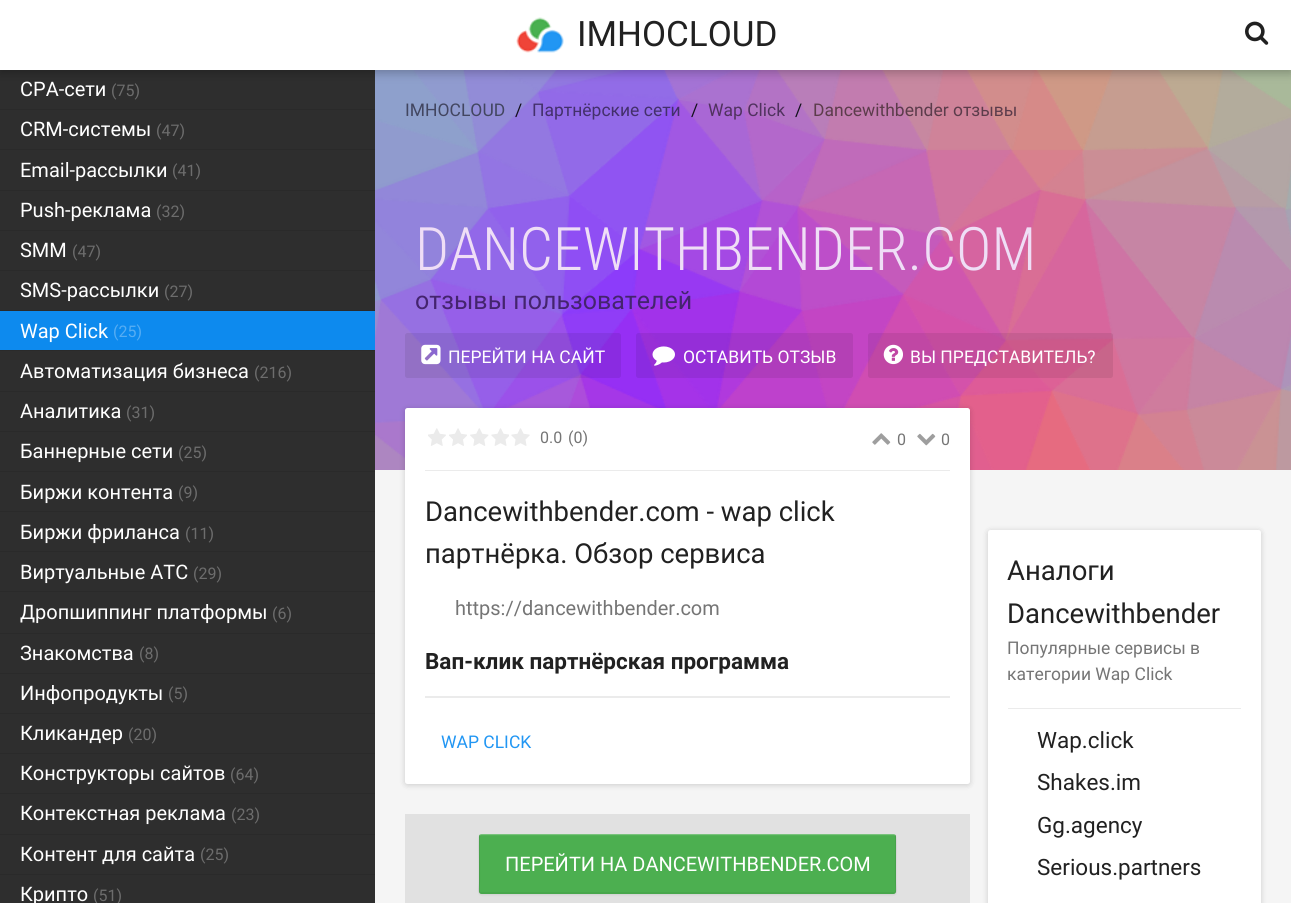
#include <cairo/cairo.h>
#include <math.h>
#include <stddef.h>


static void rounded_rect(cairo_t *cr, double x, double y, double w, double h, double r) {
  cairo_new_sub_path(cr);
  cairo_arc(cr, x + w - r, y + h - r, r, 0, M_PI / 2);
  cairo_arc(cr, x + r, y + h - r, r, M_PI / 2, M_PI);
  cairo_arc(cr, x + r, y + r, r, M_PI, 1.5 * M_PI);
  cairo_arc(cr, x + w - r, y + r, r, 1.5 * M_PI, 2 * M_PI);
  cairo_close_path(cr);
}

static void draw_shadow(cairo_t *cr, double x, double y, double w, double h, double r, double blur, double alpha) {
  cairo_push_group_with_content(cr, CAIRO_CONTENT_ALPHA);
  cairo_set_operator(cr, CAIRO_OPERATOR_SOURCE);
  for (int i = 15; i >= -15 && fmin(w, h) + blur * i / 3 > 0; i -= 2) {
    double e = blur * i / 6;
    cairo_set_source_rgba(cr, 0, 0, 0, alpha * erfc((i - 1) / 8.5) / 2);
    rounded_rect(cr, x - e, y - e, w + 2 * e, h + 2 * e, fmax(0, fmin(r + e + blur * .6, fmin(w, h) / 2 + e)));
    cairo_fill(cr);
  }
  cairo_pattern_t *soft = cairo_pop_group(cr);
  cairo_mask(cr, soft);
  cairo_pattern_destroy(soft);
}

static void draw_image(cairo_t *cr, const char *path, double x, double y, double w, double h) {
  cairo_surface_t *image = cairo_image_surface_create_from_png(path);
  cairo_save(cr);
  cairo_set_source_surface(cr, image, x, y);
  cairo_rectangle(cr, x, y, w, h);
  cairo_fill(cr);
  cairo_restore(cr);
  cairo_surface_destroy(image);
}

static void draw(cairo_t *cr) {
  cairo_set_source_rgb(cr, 245 / 255.0, 245 / 255.0, 245 / 255.0);
  cairo_paint(cr);
  cairo_set_source_rgb(cr, 46 / 255.0, 46 / 255.0, 46 / 255.0);
  cairo_rectangle(cr, 0, 70, 375, 833);
  cairo_fill(cr);
  draw_image(cr, "images/3.png", 375, 70, 916, 400);
  cairo_set_source_rgb(cr, 0, 0, 0);
  draw_shadow(cr, 0, 3, 1291, 70, 0, 5, 0.24);
  cairo_set_source_rgb(cr, 1, 1, 1);
  cairo_rectangle(cr, 0, 0, 1291, 70);
  cairo_fill(cr);
  draw_image(cr, "images/1.png", 516, 17, 48, 36);
  draw_image(cr, "images/2.png", 1245, 21, 24, 24);
  cairo_set_source_rgb(cr, 42 / 255.0, 42 / 255.0, 42 / 255.0);
  cairo_rectangle(cr, 0, 109, 375, 1);
  cairo_fill(cr);
  cairo_rectangle(cr, 0, 149, 375, 1);
  cairo_fill(cr);
  cairo_rectangle(cr, 0, 190, 375, 1);
  cairo_fill(cr);
  cairo_rectangle(cr, 0, 230, 375, 1);
  cairo_fill(cr);
  cairo_rectangle(cr, 0, 270, 375, 1);
  cairo_fill(cr);
  cairo_rectangle(cr, 0, 310, 375, 1);
  cairo_fill(cr);
  cairo_set_source_rgb(cr, 13 / 255.0, 138 / 255.0, 238 / 255.0);
  cairo_rectangle(cr, 0, 311, 375, 39);
  cairo_fill(cr);
  cairo_set_source_rgb(cr, 42 / 255.0, 42 / 255.0, 42 / 255.0);
  cairo_rectangle(cr, 0, 350, 375, 1);
  cairo_fill(cr);
  cairo_rectangle(cr, 0, 391, 375, 1);
  cairo_fill(cr);
  cairo_rectangle(cr, 0, 431, 375, 1);
  cairo_fill(cr);
  cairo_rectangle(cr, 0, 471, 375, 1);
  cairo_fill(cr);
  cairo_rectangle(cr, 0, 511, 375, 1);
  cairo_fill(cr);
  cairo_rectangle(cr, 0, 551, 375, 1);
  cairo_fill(cr);
  cairo_rectangle(cr, 0, 591, 375, 1);
  cairo_fill(cr);
  cairo_rectangle(cr, 0, 633, 375, 1);
  cairo_fill(cr);
  cairo_rectangle(cr, 0, 673, 375, 1);
  cairo_fill(cr);
  cairo_rectangle(cr, 0, 713, 375, 1);
  cairo_fill(cr);
  cairo_rectangle(cr, 0, 753, 375, 1);
  cairo_fill(cr);
  cairo_rectangle(cr, 0, 793, 375, 1);
  cairo_fill(cr);
  cairo_rectangle(cr, 0, 834, 375, 1);
  cairo_fill(cr);
  cairo_rectangle(cr, 0, 874, 375, 1);
  cairo_fill(cr);
  cairo_set_source_rgba(cr, 0, 0, 0, 0.08);
  rounded_rect(cr, 405, 333, 216, 45, 2.5);
  cairo_fill(cr);
  draw_image(cr, "images/4.png", 421, 344, 20, 21);
  rounded_rect(cr, 636, 333, 217, 45, 2.5);
  cairo_fill(cr);
  draw_image(cr, "images/5.png", 652, 346, 23, 20);
  rounded_rect(cr, 868, 333, 245, 45, 2.5);
  cairo_fill(cr);
  draw_image(cr, "images/6.png", 883, 344, 20, 21);
  cairo_set_source_rgb(cr, 0, 0, 0);
  draw_shadow(cr, 405, 409, 565, 376, 2.5, 2.5, 0.1);
  draw_shadow(cr, 405, 409, 565, 376, 2.5, 4, 0.08);
  cairo_set_source_rgb(cr, 1, 1, 1);
  rounded_rect(cr, 405, 408, 565, 376, 2.5);
  cairo_fill(cr);
  cairo_set_source_rgb(cr, 235 / 255.0, 235 / 255.0, 235 / 255.0);
  cairo_rectangle(cr, 425, 470, 525, 1);
  cairo_fill(cr);
  draw_image(cr, "images/7.png", 428, 428, 18, 18);
  draw_image(cr, "images/8.png", 449, 428, 18, 18);
  draw_image(cr, "images/9.png", 470, 428, 19, 18);
  draw_image(cr, "images/10.png", 491, 428, 18, 18);
  draw_image(cr, "images/11.png", 511, 428, 19, 18);
  draw_image(cr, "images/12.png", 872, 433, 19, 12);
  draw_image(cr, "images/13.png", 917, 433, 19, 13);
  cairo_rectangle(cr, 425, 696, 525, 2);
  cairo_fill(cr);
  cairo_set_source_rgb(cr, 225 / 255.0, 225 / 255.0, 225 / 255.0);
  cairo_rectangle(cr, 405, 814, 565, 89);
  cairo_fill(cr);
  cairo_set_source_rgb(cr, 0, 0, 0);
  draw_shadow(cr, 479, 835, 417, 60, 2.5, 1, 0.08);
  cairo_set_source_rgb(cr, 76 / 255.0, 175 / 255.0, 80 / 255.0);
  rounded_rect(cr, 479, 834, 417, 60, 2.5);
  cairo_fill(cr);
  cairo_new_path(cr);
  cairo_move_to(cr, 480, 835);
  cairo_line_to(cr, 481, 834.5);
  cairo_line_to(cr, 894, 834.5);
  cairo_line_to(cr, 895, 835);
  cairo_set_source_rgba(cr, 1, 1, 1, 0.25);
  cairo_set_line_width(cr, 1.2);
  cairo_stroke(cr);
  cairo_new_path(cr);
  cairo_move_to(cr, 895, 835);
  cairo_curve_to(cr, 896.5, 836.5, 895.5, 860, 895.5, 864);
  cairo_line_to(cr, 895.5, 882);
  cairo_curve_to(cr, 895.5, 886, 897.5, 893, 894, 893);
  cairo_line_to(cr, 481, 893);
  cairo_curve_to(cr, 477.5, 893, 479.5, 886, 479.5, 882);
  cairo_line_to(cr, 479.5, 864);
  cairo_curve_to(cr, 479.5, 860, 478.5, 836.5, 480, 835);
  cairo_set_source_rgba(cr, 0, 0, 0, 0.08);
  cairo_stroke(cr);
  cairo_set_source_rgb(cr, 0, 0, 0);
  draw_shadow(cr, 988, 531, 273, 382, 2.5, 2.5, 0.1);
  draw_shadow(cr, 988, 531, 273, 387, 2.5, 4, 0.08);
  cairo_set_source_rgb(cr, 1, 1, 1);
  rounded_rect(cr, 988, 530, 273, 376, 2.5);
  cairo_fill(cr);
  cairo_set_source_rgb(cr, 235 / 255.0, 235 / 255.0, 235 / 255.0);
  cairo_rectangle(cr, 1008, 708, 233, 1);
  cairo_fill(cr);
  cairo_select_font_face(cr, "Roboto", CAIRO_FONT_SLANT_NORMAL, CAIRO_FONT_WEIGHT_NORMAL);
  cairo_set_font_size(cr, 35);
  cairo_set_source_rgb(cr, 33 / 255.0, 33 / 255.0, 33 / 255.0);
  cairo_move_to(cr, 577, 46);
  cairo_show_text(cr, "IMHOCLOUD");
  cairo_set_font_size(cr, 20);
  cairo_set_source_rgb(cr, 1, 1, 1);
  cairo_move_to(cr, 20, 96);
  cairo_show_text(cr, "CPA-сети");
  cairo_set_font_size(cr, 16);
  cairo_set_source_rgb(cr, 109 / 255.0, 109 / 255.0, 109 / 255.0);
  cairo_move_to(cr, 111, 96);
  cairo_show_text(cr, "(75)");
  cairo_set_font_size(cr, 20);
  cairo_set_source_rgb(cr, 1, 1, 1);
  cairo_move_to(cr, 20, 136);
  cairo_show_text(cr, "CRM-системы");
  cairo_set_font_size(cr, 16);
  cairo_set_source_rgb(cr, 109 / 255.0, 109 / 255.0, 109 / 255.0);
  cairo_move_to(cr, 156, 136);
  cairo_show_text(cr, "(47)");
  cairo_set_font_size(cr, 20);
  cairo_set_source_rgb(cr, 1, 1, 1);
  cairo_move_to(cr, 20, 177);
  cairo_show_text(cr, "Email-рассылки");
  cairo_set_font_size(cr, 16);
  cairo_set_source_rgb(cr, 109 / 255.0, 109 / 255.0, 109 / 255.0);
  cairo_move_to(cr, 172, 176);
  cairo_show_text(cr, "(41)");
  cairo_set_font_size(cr, 20);
  cairo_set_source_rgb(cr, 1, 1, 1);
  cairo_move_to(cr, 20, 217);
  cairo_show_text(cr, "Push-реклама");
  cairo_set_font_size(cr, 16);
  cairo_set_source_rgb(cr, 109 / 255.0, 109 / 255.0, 109 / 255.0);
  cairo_move_to(cr, 156, 217);
  cairo_show_text(cr, "(32)");
  cairo_set_font_size(cr, 20);
  cairo_set_source_rgb(cr, 1, 1, 1);
  cairo_move_to(cr, 20, 257);
  cairo_show_text(cr, "SMM");
  cairo_set_font_size(cr, 16);
  cairo_set_source_rgb(cr, 109 / 255.0, 109 / 255.0, 109 / 255.0);
  cairo_move_to(cr, 72, 257);
  cairo_show_text(cr, "(47)");
  cairo_set_font_size(cr, 20);
  cairo_set_source_rgb(cr, 1, 1, 1);
  cairo_move_to(cr, 20, 297);
  cairo_show_text(cr, "SMS-рассылки");
  cairo_set_font_size(cr, 16);
  cairo_set_source_rgb(cr, 109 / 255.0, 109 / 255.0, 109 / 255.0);
  cairo_move_to(cr, 164, 297);
  cairo_show_text(cr, "(27)");
  cairo_set_font_size(cr, 20);
  cairo_set_source_rgb(cr, 1, 1, 1);
  cairo_move_to(cr, 20, 338);
  cairo_show_text(cr, "Wap Click");
  cairo_set_font_size(cr, 16);
  cairo_set_source_rgb(cr, 86 / 255.0, 173 / 255.0, 243 / 255.0);
  cairo_move_to(cr, 113, 337);
  cairo_show_text(cr, "(25)");
  cairo_set_font_size(cr, 20);
  cairo_set_source_rgb(cr, 1, 1, 1);
  cairo_move_to(cr, 20, 378);
  cairo_show_text(cr, "Автоматизация бизнеса");
  cairo_set_font_size(cr, 16);
  cairo_set_source_rgb(cr, 109 / 255.0, 109 / 255.0, 109 / 255.0);
  cairo_move_to(cr, 254, 378);
  cairo_show_text(cr, "(216)");
  cairo_set_font_size(cr, 20);
  cairo_set_source_rgb(cr, 1, 1, 1);
  cairo_move_to(cr, 20, 418);
  cairo_show_text(cr, "Аналитика");
  cairo_set_font_size(cr, 16);
  cairo_set_source_rgb(cr, 109 / 255.0, 109 / 255.0, 109 / 255.0);
  cairo_move_to(cr, 126, 418);
  cairo_show_text(cr, "(31)");
  cairo_set_font_size(cr, 20);
  cairo_set_source_rgb(cr, 1, 1, 1);
  cairo_move_to(cr, 20, 458);
  cairo_show_text(cr, "Баннерные сети");
  cairo_set_font_size(cr, 16);
  cairo_set_source_rgb(cr, 109 / 255.0, 109 / 255.0, 109 / 255.0);
  cairo_move_to(cr, 178, 458);
  cairo_show_text(cr, "(25)");
  cairo_set_font_size(cr, 20);
  cairo_set_source_rgb(cr, 1, 1, 1);
  cairo_move_to(cr, 20, 499);
  cairo_show_text(cr, "Биржи контента");
  cairo_set_font_size(cr, 16);
  cairo_set_source_rgb(cr, 109 / 255.0, 109 / 255.0, 109 / 255.0);
  cairo_move_to(cr, 178, 498);
  cairo_show_text(cr, "(9)");
  cairo_set_font_size(cr, 20);
  cairo_set_source_rgb(cr, 1, 1, 1);
  cairo_move_to(cr, 20, 539);
  cairo_show_text(cr, "Биржи фриланса");
  cairo_set_font_size(cr, 16);
  cairo_set_source_rgb(cr, 109 / 255.0, 109 / 255.0, 109 / 255.0);
  cairo_move_to(cr, 185, 539);
  cairo_show_text(cr, "(11)");
  cairo_set_font_size(cr, 20);
  cairo_set_source_rgb(cr, 1, 1, 1);
  cairo_move_to(cr, 20, 579);
  cairo_show_text(cr, "Виртуальные АТС");
  cairo_set_font_size(cr, 16);
  cairo_set_source_rgb(cr, 109 / 255.0, 109 / 255.0, 109 / 255.0);
  cairo_move_to(cr, 193, 579);
  cairo_show_text(cr, "(29)");
  cairo_set_font_size(cr, 20);
  cairo_set_source_rgb(cr, 1, 1, 1);
  cairo_move_to(cr, 20, 619);
  cairo_show_text(cr, "Дропшиппинг платформы");
  cairo_set_font_size(cr, 16);
  cairo_set_source_rgb(cr, 109 / 255.0, 109 / 255.0, 109 / 255.0);
  cairo_move_to(cr, 272, 619);
  cairo_show_text(cr, "(6)");
  cairo_set_font_size(cr, 20);
  cairo_set_source_rgb(cr, 1, 1, 1);
  cairo_move_to(cr, 20, 660);
  cairo_show_text(cr, "Знакомства");
  cairo_set_font_size(cr, 16);
  cairo_set_source_rgb(cr, 109 / 255.0, 109 / 255.0, 109 / 255.0);
  cairo_move_to(cr, 139, 659);
  cairo_show_text(cr, "(8)");
  cairo_set_font_size(cr, 20);
  cairo_set_source_rgb(cr, 1, 1, 1);
  cairo_move_to(cr, 20, 700);
  cairo_show_text(cr, "Инфопродукты");
  cairo_set_font_size(cr, 16);
  cairo_set_source_rgb(cr, 109 / 255.0, 109 / 255.0, 109 / 255.0);
  cairo_move_to(cr, 168, 699);
  cairo_show_text(cr, "(5)");
  cairo_set_font_size(cr, 20);
  cairo_set_source_rgb(cr, 1, 1, 1);
  cairo_move_to(cr, 20, 740);
  cairo_show_text(cr, "Кликандер");
  cairo_set_font_size(cr, 16);
  cairo_set_source_rgb(cr, 109 / 255.0, 109 / 255.0, 109 / 255.0);
  cairo_move_to(cr, 128, 740);
  cairo_show_text(cr, "(20)");
  cairo_set_font_size(cr, 20);
  cairo_set_source_rgb(cr, 1, 1, 1);
  cairo_move_to(cr, 20, 780);
  cairo_show_text(cr, "Конструкторы сайтов");
  cairo_set_font_size(cr, 16);
  cairo_set_source_rgb(cr, 109 / 255.0, 109 / 255.0, 109 / 255.0);
  cairo_move_to(cr, 230, 780);
  cairo_show_text(cr, "(64)");
  cairo_set_font_size(cr, 20);
  cairo_set_source_rgb(cr, 1, 1, 1);
  cairo_move_to(cr, 20, 820);
  cairo_show_text(cr, "Контекстная реклама");
  cairo_set_font_size(cr, 16);
  cairo_set_source_rgb(cr, 109 / 255.0, 109 / 255.0, 109 / 255.0);
  cairo_move_to(cr, 231, 820);
  cairo_show_text(cr, "(23)");
  cairo_set_font_size(cr, 20);
  cairo_set_source_rgb(cr, 1, 1, 1);
  cairo_move_to(cr, 20, 861);
  cairo_show_text(cr, "Контент для сайта");
  cairo_set_font_size(cr, 16);
  cairo_set_source_rgb(cr, 109 / 255.0, 109 / 255.0, 109 / 255.0);
  cairo_move_to(cr, 200, 860);
  cairo_show_text(cr, "(25)");
  cairo_set_font_size(cr, 20);
  cairo_set_source_rgb(cr, 1, 1, 1);
  cairo_move_to(cr, 20, 901);
  cairo_show_text(cr, "Крипто");
  cairo_set_font_size(cr, 16);
  cairo_set_source_rgb(cr, 109 / 255.0, 109 / 255.0, 109 / 255.0);
  cairo_move_to(cr, 93, 901);
  cairo_show_text(cr, "(51)");
  cairo_set_font_size(cr, 17.5);
  cairo_set_source_rgb(cr, 66 / 255.0, 70 / 255.0, 96 / 255.0);
  cairo_move_to(cr, 405, 116);
  cairo_show_text(cr, "IMHOCLOUD");
  cairo_set_source_rgb(cr, 19 / 255.0, 17 / 255.0, 28 / 255.0);
  cairo_move_to(cr, 515, 116);
  cairo_show_text(cr, "/");
  cairo_set_source_rgb(cr, 67 / 255.0, 48 / 255.0, 107 / 255.0);
  cairo_move_to(cr, 532, 116);
  cairo_show_text(cr, "Партнёрские сети");
  cairo_set_source_rgb(cr, 19 / 255.0, 17 / 255.0, 28 / 255.0);
  cairo_move_to(cr, 691, 116);
  cairo_show_text(cr, "/");
  cairo_set_source_rgb(cr, 80 / 255.0, 50 / 255.0, 94 / 255.0);
  cairo_move_to(cr, 708, 116);
  cairo_show_text(cr, "Wap Click");
  cairo_set_source_rgb(cr, 19 / 255.0, 17 / 255.0, 28 / 255.0);
  cairo_move_to(cr, 795, 116);
  cairo_show_text(cr, "/");
  cairo_set_source_rgb(cr, 92 / 255.0, 60 / 255.0, 75 / 255.0);
  cairo_move_to(cr, 813, 116);
  cairo_show_text(cr, "Dancewithbender отзывы");
  cairo_select_font_face(cr, "Roboto Condensed Light", CAIRO_FONT_SLANT_NORMAL, CAIRO_FONT_WEIGHT_NORMAL);
  cairo_set_font_size(cr, 60);
  cairo_set_source_rgb(cr, 239 / 255.0, 222 / 255.0, 246 / 255.0);
  cairo_move_to(cr, 415, 270);
  cairo_show_text(cr, "DANCEWITHBENDER.COM");
  cairo_select_font_face(cr, "Roboto", CAIRO_FONT_SLANT_NORMAL, CAIRO_FONT_WEIGHT_NORMAL);
  cairo_set_font_size(cr, 25);
  cairo_set_source_rgb(cr, 68 / 255.0, 36 / 255.0, 110 / 255.0);
  cairo_move_to(cr, 415, 309);
  cairo_show_text(cr, "отзывы пользователей");
  cairo_set_font_size(cr, 17.5);
  cairo_set_source_rgb(cr, 1, 1, 1);
  cairo_move_to(cr, 448, 363);
  cairo_show_text(cr, "ПЕРЕЙТИ НА САЙТ");
  cairo_move_to(cr, 683, 363);
  cairo_show_text(cr, "ОСТАВИТЬ ОТЗЫВ");
  cairo_move_to(cr, 910, 363);
  cairo_show_text(cr, "ВЫ ПРЕДСТАВИТЕЛЬ?");
  cairo_set_font_size(cr, 16);
  cairo_set_source_rgb(cr, 117 / 255.0, 117 / 255.0, 117 / 255.0);
  cairo_move_to(cr, 540, 443);
  cairo_show_text(cr, "0.0");
  cairo_move_to(cr, 568, 443);
  cairo_show_text(cr, "(0)");
  cairo_move_to(cr, 897, 445);
  cairo_show_text(cr, "0");
  cairo_move_to(cr, 941, 445);
  cairo_show_text(cr, "0");
  cairo_set_font_size(cr, 27.5);
  cairo_set_source_rgb(cr, 33 / 255.0, 33 / 255.0, 33 / 255.0);
  cairo_move_to(cr, 425, 521);
  cairo_show_text(cr, "Dancewithbender.com - wap click");
  cairo_move_to(cr, 425, 563);
  cairo_show_text(cr, "партнёрка. Обзор сервиса");
  cairo_set_font_size(cr, 20);
  cairo_set_source_rgb(cr, 117 / 255.0, 117 / 255.0, 117 / 255.0);
  cairo_move_to(cr, 455, 615);
  cairo_show_text(cr, "https://dancewithbender.com");
  cairo_select_font_face(cr, "Roboto", CAIRO_FONT_SLANT_NORMAL, CAIRO_FONT_WEIGHT_BOLD);
  cairo_set_font_size(cr, 22.5);
  cairo_set_source_rgb(cr, 33 / 255.0, 33 / 255.0, 33 / 255.0);
  cairo_move_to(cr, 425, 669);
  cairo_show_text(cr, "Вап-клик партнёрская программа");
  cairo_select_font_face(cr, "Roboto", CAIRO_FONT_SLANT_NORMAL, CAIRO_FONT_WEIGHT_NORMAL);
  cairo_set_font_size(cr, 17.5);
  cairo_set_source_rgb(cr, 33 / 255.0, 150 / 255.0, 243 / 255.0);
  cairo_move_to(cr, 441, 748);
  cairo_show_text(cr, "WAP CLICK");
  cairo_set_font_size(cr, 20);
  cairo_set_source_rgb(cr, 1, 1, 1);
  cairo_move_to(cr, 505, 871);
  cairo_show_text(cr, "ПЕРЕЙТИ НА DANCEWITHBENDER.COM");
  cairo_set_font_size(cr, 27.5);
  cairo_set_source_rgb(cr, 33 / 255.0, 33 / 255.0, 33 / 255.0);
  cairo_move_to(cr, 1007, 580);
  cairo_show_text(cr, "Аналоги");
  cairo_move_to(cr, 1007, 623);
  cairo_show_text(cr, "Dancewithbender");
  cairo_set_font_size(cr, 17.5);
  cairo_set_source_rgb(cr, 117 / 255.0, 117 / 255.0, 117 / 255.0);
  cairo_move_to(cr, 1007, 654);
  cairo_show_text(cr, "Популярные сервисы в");
  cairo_move_to(cr, 1007, 680);
  cairo_show_text(cr, "категории Wap Click");
  cairo_set_font_size(cr, 22.5);
  cairo_set_source_rgb(cr, 33 / 255.0, 33 / 255.0, 33 / 255.0);
  cairo_move_to(cr, 1037, 748);
  cairo_show_text(cr, "Wap.click");
  cairo_move_to(cr, 1037, 790);
  cairo_show_text(cr, "Shakes.im");
  cairo_move_to(cr, 1037, 833);
  cairo_show_text(cr, "Gg.agency");
  cairo_move_to(cr, 1037, 875);
  cairo_show_text(cr, "Serious.partners");
}

int main(void) {
  cairo_surface_t *surface = cairo_image_surface_create(CAIRO_FORMAT_RGB24, 1291, 903);
  cairo_t *cr = cairo_create(surface);
  cairo_font_options_t *options = cairo_font_options_create();
  cairo_font_options_set_hint_metrics(options, CAIRO_HINT_METRICS_OFF);
  cairo_font_options_set_hint_style(options, CAIRO_HINT_STYLE_NONE);
  cairo_set_font_options(cr, options);
  cairo_set_miter_limit(cr, 4);
  draw(cr);
  cairo_surface_write_to_png(surface, "out.png");
  cairo_font_options_destroy(options);
  cairo_destroy(cr);
  cairo_surface_destroy(surface);
  return 0;
}
